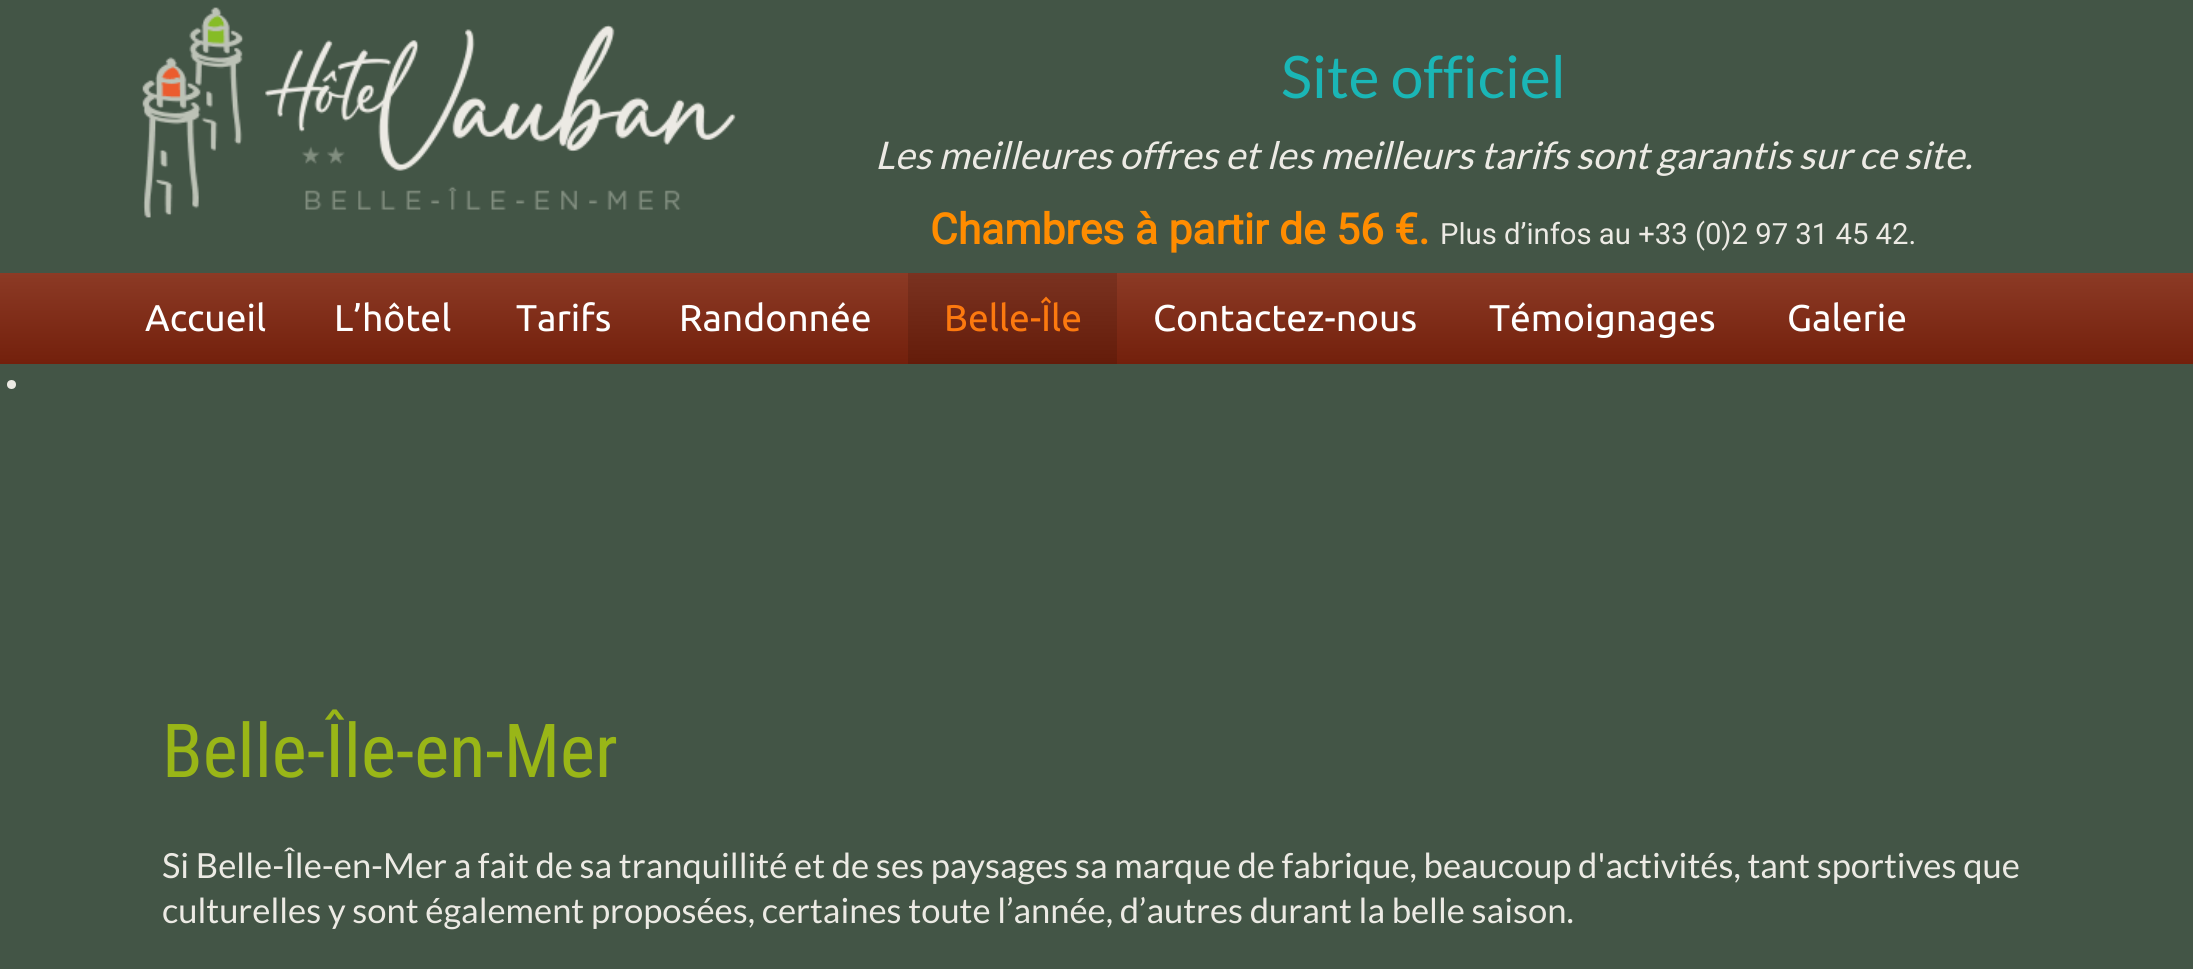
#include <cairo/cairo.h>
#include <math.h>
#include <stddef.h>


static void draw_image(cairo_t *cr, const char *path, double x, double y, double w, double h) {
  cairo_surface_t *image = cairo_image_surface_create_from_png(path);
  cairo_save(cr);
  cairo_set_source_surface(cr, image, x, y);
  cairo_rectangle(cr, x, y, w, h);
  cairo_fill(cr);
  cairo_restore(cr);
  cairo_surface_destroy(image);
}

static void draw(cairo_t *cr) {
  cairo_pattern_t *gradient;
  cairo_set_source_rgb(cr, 67 / 255.0, 85 / 255.0, 70 / 255.0);
  cairo_paint(cr);
  draw_image(cr, "images/1.png", 142, 7, 594, 211);
  gradient = cairo_pattern_create_linear(1097, 273, 1097, 364);
  cairo_pattern_add_color_stop_rgba(gradient, 0, 140 / 255.0, 58 / 255.0, 37 / 255.0, 1);
  cairo_pattern_add_color_stop_rgba(gradient, 1, 115 / 255.0, 32 / 255.0, 12 / 255.0, 1);
  cairo_set_source(cr, gradient);
  cairo_pattern_destroy(gradient);
  cairo_rectangle(cr, 0, 273, 2193, 91);
  cairo_fill(cr);
  gradient = cairo_pattern_create_linear(1097, 273, 1097, 364);
  cairo_pattern_add_color_stop_rgba(gradient, 0, 122 / 255.0, 50 / 255.0, 32 / 255.0, 1);
  cairo_pattern_add_color_stop_rgba(gradient, 1, 100 / 255.0, 28 / 255.0, 10 / 255.0, 1);
  cairo_set_source(cr, gradient);
  cairo_pattern_destroy(gradient);
  cairo_rectangle(cr, 908, 273, 209, 91);
  cairo_fill(cr);
  cairo_set_source_rgb(cr, 236 / 255.0, 234 / 255.0, 228 / 255.0);
  cairo_arc(cr, 11.5, 384.5, 4.5, 0, 2 * M_PI);
  cairo_fill(cr);
  cairo_select_font_face(cr, "Lato", CAIRO_FONT_SLANT_NORMAL, CAIRO_FONT_WEIGHT_NORMAL);
  cairo_set_font_size(cr, 58.5);
  cairo_set_source_rgb(cr, 26 / 255.0, 182 / 255.0, 182 / 255.0);
  cairo_move_to(cr, 1281, 98);
  cairo_show_text(cr, "Site officiel");
  cairo_select_font_face(cr, "Lato", CAIRO_FONT_SLANT_ITALIC, CAIRO_FONT_WEIGHT_NORMAL);
  cairo_set_font_size(cr, 38.05);
  cairo_set_source_rgb(cr, 236 / 255.0, 234 / 255.0, 228 / 255.0);
  cairo_move_to(cr, 875, 169);
  cairo_show_text(cr, "Les meilleures offres et les meilleurs tarifs sont garantis sur ce site.");
  cairo_select_font_face(cr, "Roboto", CAIRO_FONT_SLANT_NORMAL, CAIRO_FONT_WEIGHT_BOLD);
  cairo_set_font_size(cr, 42.5);
  cairo_set_source_rgb(cr, 1, 140 / 255.0, 0);
  cairo_move_to(cr, 930, 244);
  cairo_show_text(cr, "Chambres à partir de 56 €.");
  cairo_select_font_face(cr, "Roboto", CAIRO_FONT_SLANT_NORMAL, CAIRO_FONT_WEIGHT_NORMAL);
  cairo_set_font_size(cr, 29.25);
  cairo_set_source_rgb(cr, 236 / 255.0, 234 / 255.0, 228 / 255.0);
  cairo_move_to(cr, 1440, 244);
  cairo_show_text(cr, "Plus d’infos au +33 (0)2 97 31 45 42.");
  cairo_select_font_face(cr, "Ubuntu", CAIRO_FONT_SLANT_NORMAL, CAIRO_FONT_WEIGHT_NORMAL);
  cairo_set_font_size(cr, 37.25);
  cairo_set_source_rgb(cr, 1, 1, 1);
  cairo_move_to(cr, 145, 331);
  cairo_show_text(cr, "Accueil");
  cairo_move_to(cr, 334, 331);
  cairo_show_text(cr, "L’hôtel");
  cairo_move_to(cr, 516, 331);
  cairo_show_text(cr, "Tarifs");
  cairo_move_to(cr, 679, 331);
  cairo_show_text(cr, "Randonnée");
  cairo_set_source_rgb(cr, 252 / 255.0, 121 / 255.0, 15 / 255.0);
  cairo_move_to(cr, 944, 331);
  cairo_show_text(cr, "Belle-Île");
  cairo_set_source_rgb(cr, 1, 1, 1);
  cairo_move_to(cr, 1153, 331);
  cairo_show_text(cr, "Contactez-nous");
  cairo_move_to(cr, 1489, 331);
  cairo_show_text(cr, "Témoignages");
  cairo_move_to(cr, 1787, 331);
  cairo_show_text(cr, "Galerie");
  cairo_select_font_face(cr, "Roboto Condensed", CAIRO_FONT_SLANT_NORMAL, CAIRO_FONT_WEIGHT_NORMAL);
  cairo_set_font_size(cr, 74.5);
  cairo_set_source_rgb(cr, 153 / 255.0, 182 / 255.0, 23 / 255.0);
  cairo_move_to(cr, 162, 777);
  cairo_show_text(cr, "Belle-Île-en-Mer");
  cairo_select_font_face(cr, "Lato", CAIRO_FONT_SLANT_NORMAL, CAIRO_FONT_WEIGHT_NORMAL);
  cairo_set_font_size(cr, 34.58);
  cairo_set_source_rgb(cr, 236 / 255.0, 234 / 255.0, 228 / 255.0);
  cairo_move_to(cr, 162, 878);
  cairo_show_text(cr, "Si Belle-Île-en-Mer a fait de sa tranquillité et de ses paysages sa marque de fabrique, beaucoup d'activités, tant sportives que");
  cairo_move_to(cr, 162, 923);
  cairo_show_text(cr, "culturelles y sont également proposées, certaines toute l’année, d’autres durant la belle saison.");
}

int main(void) {
  cairo_surface_t *surface = cairo_image_surface_create(CAIRO_FORMAT_RGB24, 2193, 969);
  cairo_t *cr = cairo_create(surface);
  cairo_font_options_t *options = cairo_font_options_create();
  cairo_font_options_set_hint_metrics(options, CAIRO_HINT_METRICS_OFF);
  cairo_font_options_set_hint_style(options, CAIRO_HINT_STYLE_NONE);
  cairo_set_font_options(cr, options);
  cairo_set_miter_limit(cr, 4);
  draw(cr);
  cairo_surface_write_to_png(surface, "out.png");
  cairo_font_options_destroy(options);
  cairo_destroy(cr);
  cairo_surface_destroy(surface);
  return 0;
}
